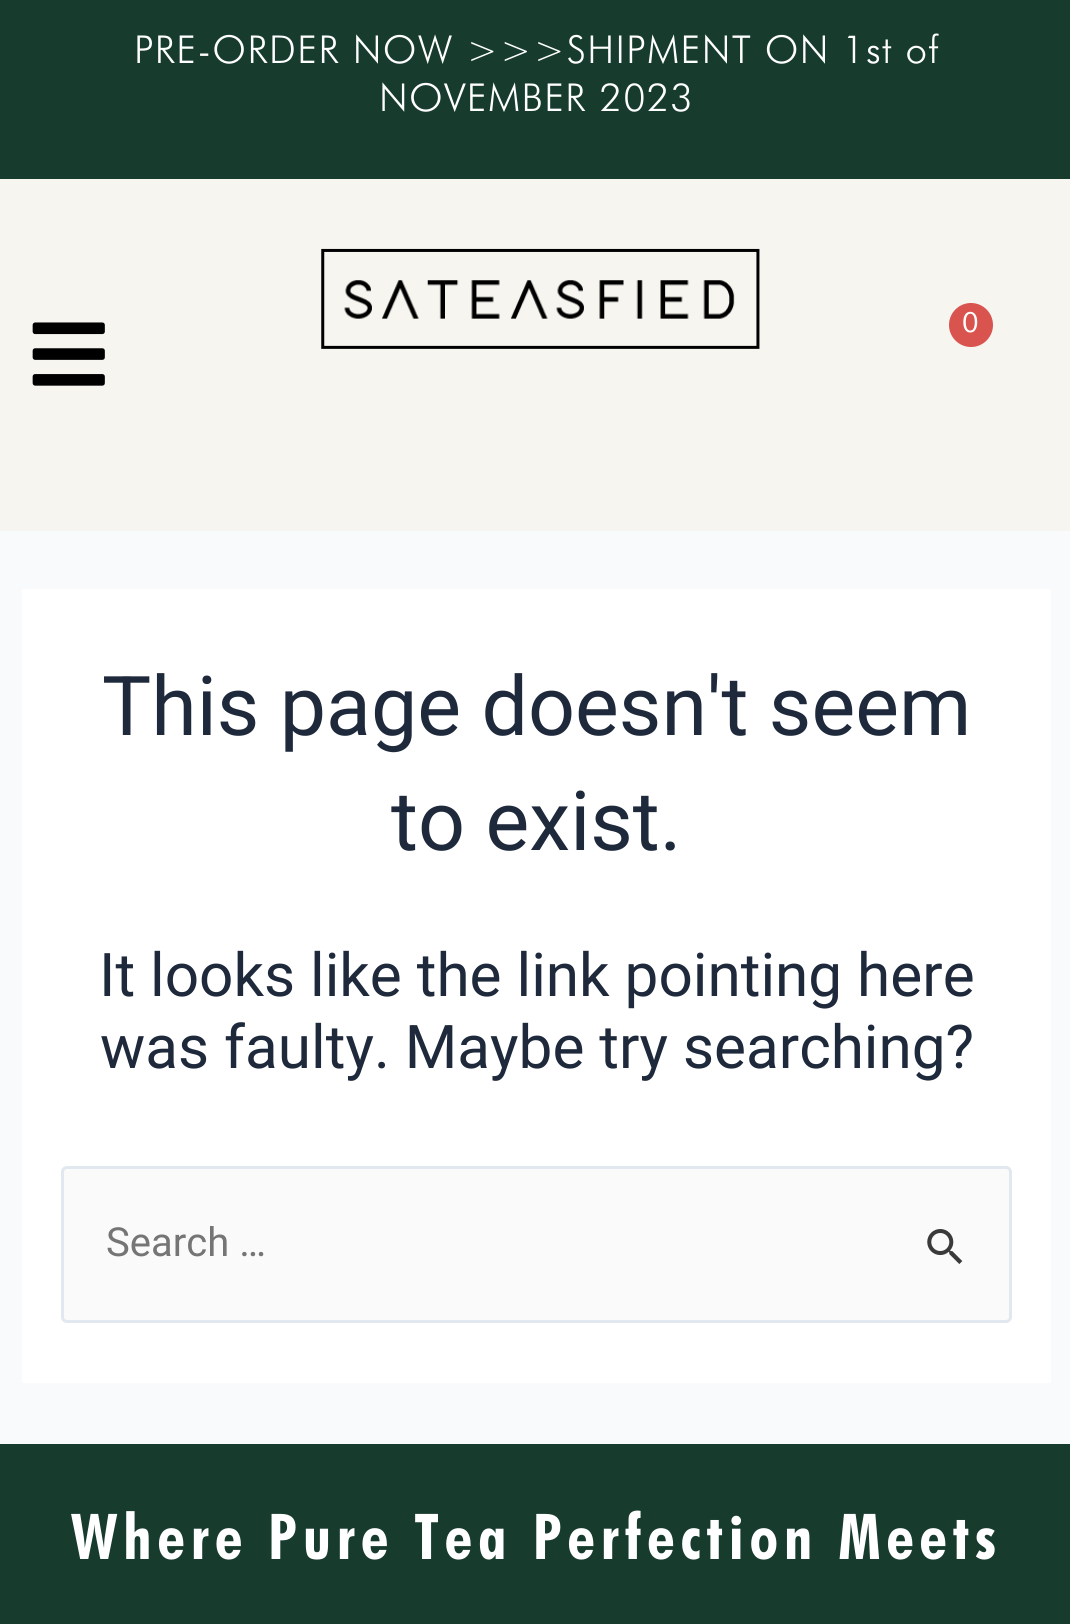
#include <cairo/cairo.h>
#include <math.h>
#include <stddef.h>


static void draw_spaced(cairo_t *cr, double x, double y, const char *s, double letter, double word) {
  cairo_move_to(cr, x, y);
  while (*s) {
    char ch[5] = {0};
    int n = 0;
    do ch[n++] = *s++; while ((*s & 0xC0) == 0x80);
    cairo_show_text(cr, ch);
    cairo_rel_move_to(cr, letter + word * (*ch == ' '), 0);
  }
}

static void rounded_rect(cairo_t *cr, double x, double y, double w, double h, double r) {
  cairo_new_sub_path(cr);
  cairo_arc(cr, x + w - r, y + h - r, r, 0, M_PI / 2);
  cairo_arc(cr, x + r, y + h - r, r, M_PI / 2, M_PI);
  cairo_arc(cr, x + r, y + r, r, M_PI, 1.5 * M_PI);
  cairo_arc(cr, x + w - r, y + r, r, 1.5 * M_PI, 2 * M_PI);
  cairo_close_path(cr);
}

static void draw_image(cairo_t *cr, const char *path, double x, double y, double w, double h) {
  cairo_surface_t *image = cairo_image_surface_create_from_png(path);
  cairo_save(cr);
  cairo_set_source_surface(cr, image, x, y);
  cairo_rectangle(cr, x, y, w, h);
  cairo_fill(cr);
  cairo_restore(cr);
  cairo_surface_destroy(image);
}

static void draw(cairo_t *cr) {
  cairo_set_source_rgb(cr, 249 / 255.0, 250 / 255.0, 251 / 255.0);
  cairo_paint(cr);
  cairo_set_source_rgb(cr, 23 / 255.0, 60 / 255.0, 45 / 255.0);
  cairo_rectangle(cr, 0, 0, 1070, 179);
  cairo_fill(cr);
  cairo_set_source_rgb(cr, 246 / 255.0, 245 / 255.0, 240 / 255.0);
  cairo_rectangle(cr, 0, 179, 1070, 352);
  cairo_fill(cr);
  draw_image(cr, "images/1.png", 32, 322, 73, 64);
  draw_image(cr, "images/2.png", 321, 248, 439, 101);
  cairo_set_source_rgb(cr, 217 / 255.0, 83 / 255.0, 79 / 255.0);
  cairo_arc(cr, 971, 325, 22, 0, 2 * M_PI);
  cairo_fill(cr);
  cairo_set_source_rgb(cr, 1, 1, 1);
  cairo_rectangle(cr, 22, 589, 1029, 794);
  cairo_fill(cr);
  cairo_set_source_rgb(cr, 250 / 255.0, 250 / 255.0, 250 / 255.0);
  rounded_rect(cr, 62.5, 1167.5, 948, 154, 4.5);
  cairo_fill_preserve(cr);
  cairo_set_source_rgb(cr, 226 / 255.0, 232 / 255.0, 240 / 255.0);
  cairo_set_line_width(cr, 3);
  cairo_stroke(cr);
  draw_image(cr, "images/3.png", 927, 1229, 36, 35);
  cairo_set_source_rgb(cr, 23 / 255.0, 60 / 255.0, 45 / 255.0);
  cairo_rectangle(cr, 0, 1444, 1070, 180);
  cairo_fill(cr);
  cairo_select_font_face(cr, "Futura Light", CAIRO_FONT_SLANT_NORMAL, CAIRO_FONT_WEIGHT_NORMAL);
  cairo_set_font_size(cr, 38.5);
  cairo_set_source_rgb(cr, 1, 1, 1);
  draw_spaced(cr, 134, 63, "PRE-ORDER NOW >>>SHIPMENT ON 1st of", 1.4, 0);
  draw_spaced(cr, 379, 111, "NOVEMBER 2023", 1.4, 0);
  cairo_select_font_face(cr, "Futura", CAIRO_FONT_SLANT_NORMAL, CAIRO_FONT_WEIGHT_NORMAL);
  cairo_set_font_size(cr, 28);
  cairo_move_to(cr, 962, 332);
  cairo_show_text(cr, "0");
  cairo_select_font_face(cr, "Roboto", CAIRO_FONT_SLANT_NORMAL, CAIRO_FONT_WEIGHT_NORMAL);
  cairo_set_font_size(cr, 82.5);
  cairo_set_source_rgb(cr, 30 / 255.0, 41 / 255.0, 59 / 255.0);
  cairo_move_to(cr, 102, 735);
  cairo_show_text(cr, "This page doesn't seem");
  cairo_move_to(cr, 391, 850);
  cairo_show_text(cr, "to exist.");
  cairo_set_font_size(cr, 60.25);
  cairo_move_to(cr, 99, 996);
  cairo_show_text(cr, "It looks like the link pointing here");
  cairo_move_to(cr, 100, 1068);
  cairo_show_text(cr, "was faulty. Maybe try searching?");
  cairo_set_font_size(cr, 40);
  cairo_set_source_rgb(cr, 117 / 255.0, 117 / 255.0, 117 / 255.0);
  cairo_move_to(cr, 106, 1256);
  cairo_show_text(cr, "Search …");
  cairo_select_font_face(cr, "Futura", CAIRO_FONT_SLANT_NORMAL, CAIRO_FONT_WEIGHT_BOLD);
  cairo_set_font_size(cr, 63.25);
  cairo_set_source_rgb(cr, 1, 1, 1);
  draw_spaced(cr, 71, 1559, "Where Pure Tea Perfection Meets", 6.05, 0);
}

int main(void) {
  cairo_surface_t *surface = cairo_image_surface_create(CAIRO_FORMAT_RGB24, 1070, 1624);
  cairo_t *cr = cairo_create(surface);
  cairo_font_options_t *options = cairo_font_options_create();
  cairo_font_options_set_hint_metrics(options, CAIRO_HINT_METRICS_OFF);
  cairo_font_options_set_hint_style(options, CAIRO_HINT_STYLE_NONE);
  cairo_set_font_options(cr, options);
  cairo_set_miter_limit(cr, 4);
  draw(cr);
  cairo_surface_write_to_png(surface, "out.png");
  cairo_font_options_destroy(options);
  cairo_destroy(cr);
  cairo_surface_destroy(surface);
  return 0;
}
